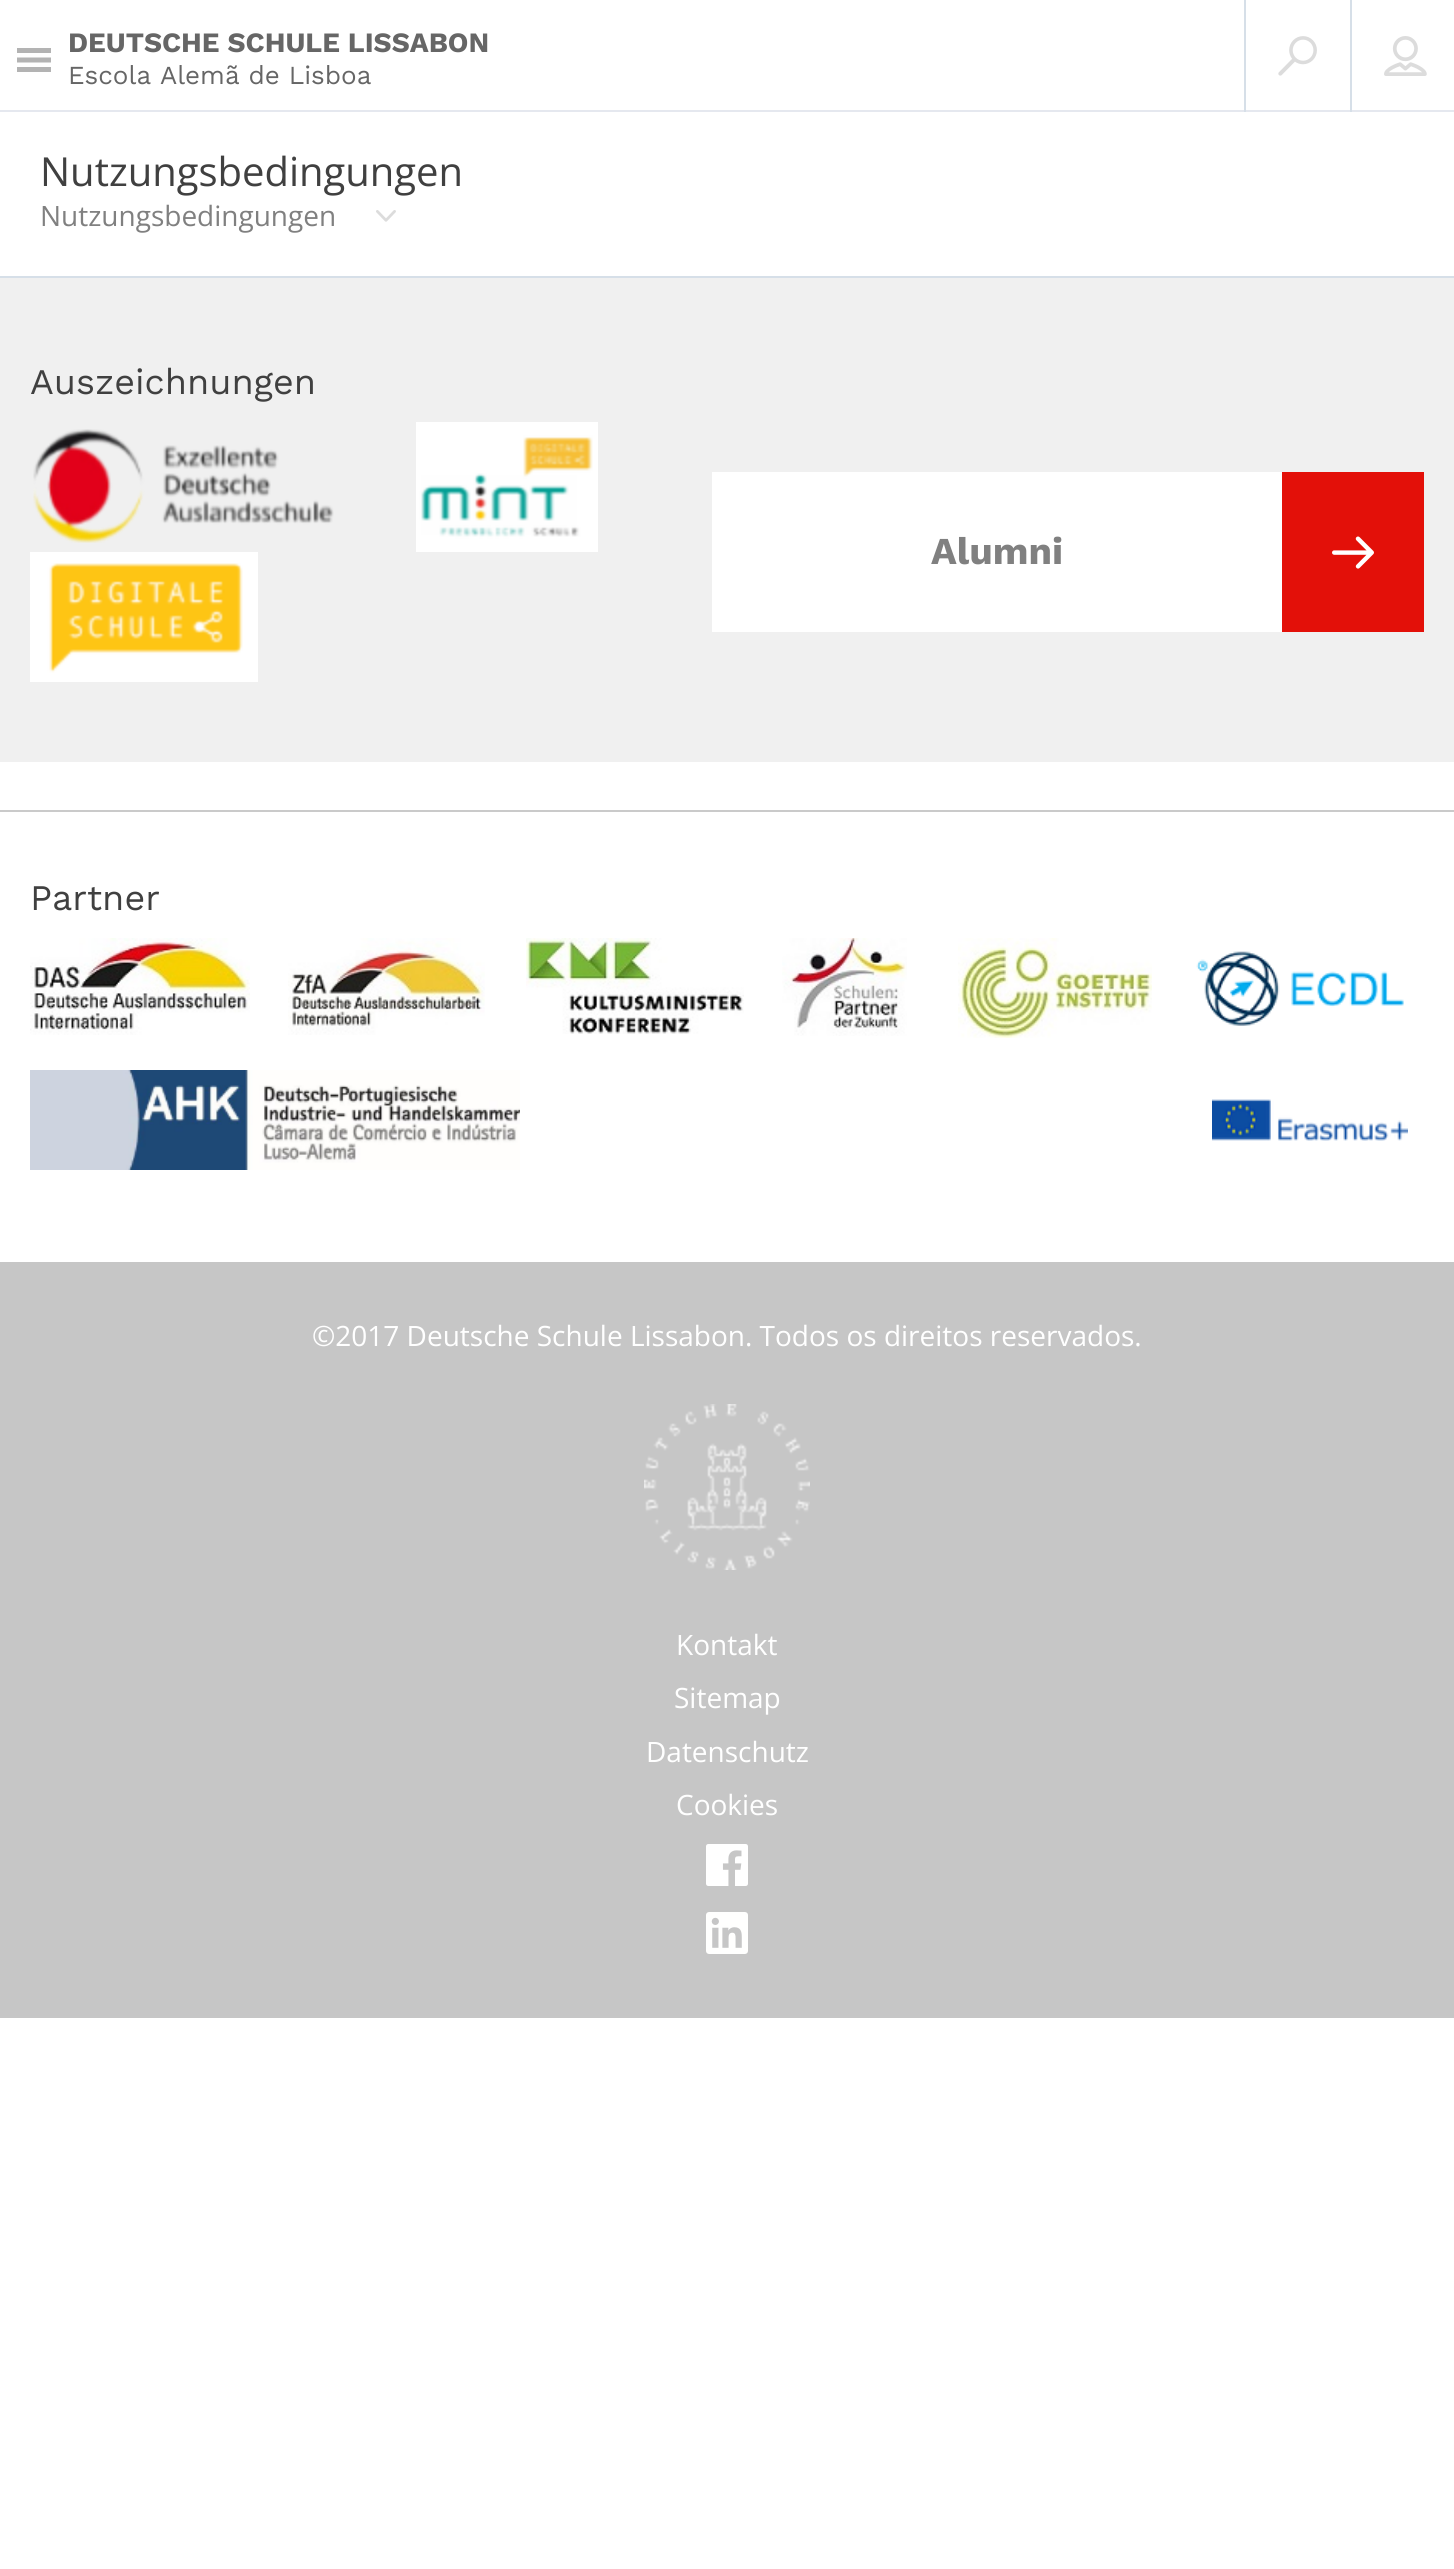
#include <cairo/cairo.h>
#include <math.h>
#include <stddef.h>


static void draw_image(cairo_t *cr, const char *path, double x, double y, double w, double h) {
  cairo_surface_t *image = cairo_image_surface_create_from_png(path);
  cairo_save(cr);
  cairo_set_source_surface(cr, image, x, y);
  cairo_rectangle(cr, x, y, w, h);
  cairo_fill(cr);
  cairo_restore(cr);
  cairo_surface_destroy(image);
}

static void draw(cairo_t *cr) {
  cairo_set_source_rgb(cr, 1, 1, 1);
  cairo_paint(cr);
  cairo_set_source_rgb(cr, 214 / 255.0, 223 / 255.0, 232 / 255.0);
  cairo_rectangle(cr, 0, 276, 1454, 2);
  cairo_fill(cr);
  cairo_set_source_rgb(cr, 229 / 255.0, 232 / 255.0, 239 / 255.0);
  cairo_rectangle(cr, 0, 110, 1454, 2);
  cairo_fill(cr);
  cairo_set_source_rgb(cr, 214 / 255.0, 223 / 255.0, 232 / 255.0);
  cairo_rectangle(cr, 1244, 0, 2, 112);
  cairo_fill(cr);
  draw_image(cr, "images/1.png", 1278, 36, 39, 40);
  cairo_rectangle(cr, 1350, 0, 2, 112);
  cairo_fill(cr);
  draw_image(cr, "images/2.png", 1384, 36, 43, 40);
  cairo_set_source_rgb(cr, 179 / 255.0, 179 / 255.0, 179 / 255.0);
  cairo_new_path(cr);
  cairo_move_to(cr, 17, 72);
  cairo_line_to(cr, 51, 72);
  cairo_line_to(cr, 51, 67);
  cairo_line_to(cr, 17, 67);
  cairo_close_path(cr);
  cairo_move_to(cr, 17, 48);
  cairo_line_to(cr, 17, 53);
  cairo_line_to(cr, 51, 53);
  cairo_line_to(cr, 51, 48);
  cairo_close_path(cr);
  cairo_move_to(cr, 17, 62.5);
  cairo_line_to(cr, 51, 62.5);
  cairo_line_to(cr, 51, 57.5);
  cairo_line_to(cr, 17, 57.5);
  cairo_close_path(cr);
  cairo_fill(cr);
  draw_image(cr, "images/3.png", 376, 210, 20, 12);
  cairo_set_source_rgb(cr, 240 / 255.0, 240 / 255.0, 240 / 255.0);
  cairo_rectangle(cr, 0, 278, 1454, 484);
  cairo_fill(cr);
  draw_image(cr, "images/4.png", 33, 429, 301, 114);
  draw_image(cr, "images/5.png", 416, 422, 182, 130);
  draw_image(cr, "images/6.png", 30, 552, 228, 130);
  cairo_set_source_rgb(cr, 1, 1, 1);
  cairo_rectangle(cr, 712, 472, 570, 160);
  cairo_fill(cr);
  cairo_set_source_rgb(cr, 227 / 255.0, 16 / 255.0, 9 / 255.0);
  cairo_rectangle(cr, 1282, 472, 142, 160);
  cairo_fill(cr);
  draw_image(cr, "images/7.png", 1332, 536, 42, 33);
  cairo_set_source_rgb(cr, 202 / 255.0, 202 / 255.0, 202 / 255.0);
  cairo_rectangle(cr, 0, 810, 1454, 2);
  cairo_fill(cr);
  draw_image(cr, "images/8.png", 30, 938, 220, 97);
  draw_image(cr, "images/9.png", 288, 938, 197, 97);
  draw_image(cr, "images/10.png", 526, 938, 218, 96);
  draw_image(cr, "images/11.png", 782, 938, 125, 98);
  draw_image(cr, "images/12.png", 958, 938, 194, 100);
  draw_image(cr, "images/13.png", 1196, 951, 208, 75);
  draw_image(cr, "images/14.png", 30, 1070, 490, 100);
  draw_image(cr, "images/15.png", 1212, 1099, 196, 42);
  cairo_set_source_rgb(cr, 198 / 255.0, 198 / 255.0, 198 / 255.0);
  cairo_rectangle(cr, 0, 1262, 1454, 756);
  cairo_fill(cr);
  draw_image(cr, "images/16.png", 644, 1404, 166, 166);
  draw_image(cr, "images/17.png", 706, 1844, 42, 42);
  draw_image(cr, "images/18.png", 706, 1912, 42, 42);
  cairo_select_font_face(cr, "Work Sans", CAIRO_FONT_SLANT_NORMAL, CAIRO_FONT_WEIGHT_BOLD);
  cairo_set_font_size(cr, 28);
  cairo_set_source_rgb(cr, 102 / 255.0, 102 / 255.0, 102 / 255.0);
  cairo_move_to(cr, 68, 52);
  cairo_show_text(cr, "DEUTSCHE SCHULE LISSABON");
  cairo_select_font_face(cr, "Work Sans", CAIRO_FONT_SLANT_NORMAL, CAIRO_FONT_WEIGHT_NORMAL);
  cairo_set_font_size(cr, 26);
  cairo_move_to(cr, 68, 84);
  cairo_show_text(cr, "Escola Alemã de Lisboa");
  cairo_select_font_face(cr, "Open Sans", CAIRO_FONT_SLANT_NORMAL, CAIRO_FONT_WEIGHT_NORMAL);
  cairo_set_font_size(cr, 40);
  cairo_set_source_rgb(cr, 64 / 255.0, 64 / 255.0, 64 / 255.0);
  cairo_move_to(cr, 40, 186);
  cairo_show_text(cr, "Nutzungsbedingungen");
  cairo_set_font_size(cr, 28);
  cairo_set_source_rgb(cr, 128 / 255.0, 128 / 255.0, 128 / 255.0);
  cairo_move_to(cr, 40, 226);
  cairo_show_text(cr, "Nutzungsbedingungen");
  cairo_select_font_face(cr, "Work Sans", CAIRO_FONT_SLANT_NORMAL, CAIRO_FONT_WEIGHT_NORMAL);
  cairo_set_font_size(cr, 36);
  cairo_set_source_rgb(cr, 64 / 255.0, 64 / 255.0, 64 / 255.0);
  cairo_move_to(cr, 30, 394);
  cairo_show_text(cr, "Auszeichnungen");
  cairo_select_font_face(cr, "Work Sans", CAIRO_FONT_SLANT_NORMAL, CAIRO_FONT_WEIGHT_BOLD);
  cairo_set_font_size(cr, 38);
  cairo_set_source_rgb(cr, 128 / 255.0, 128 / 255.0, 128 / 255.0);
  cairo_move_to(cr, 931, 564);
  cairo_show_text(cr, "Alumni");
  cairo_select_font_face(cr, "Work Sans", CAIRO_FONT_SLANT_NORMAL, CAIRO_FONT_WEIGHT_NORMAL);
  cairo_set_font_size(cr, 36);
  cairo_set_source_rgb(cr, 64 / 255.0, 64 / 255.0, 64 / 255.0);
  cairo_move_to(cr, 30, 910);
  cairo_show_text(cr, "Partner");
  cairo_select_font_face(cr, "Open Sans", CAIRO_FONT_SLANT_NORMAL, CAIRO_FONT_WEIGHT_NORMAL);
  cairo_set_font_size(cr, 28);
  cairo_set_source_rgb(cr, 1, 1, 1);
  cairo_move_to(cr, 312, 1346);
  cairo_show_text(cr, "©2017 Deutsche Schule Lissabon. Todos os direitos reservados.");
  cairo_move_to(cr, 676, 1655);
  cairo_show_text(cr, "Kontakt");
  cairo_move_to(cr, 674, 1708);
  cairo_show_text(cr, "Sitemap");
  cairo_move_to(cr, 646, 1762);
  cairo_show_text(cr, "Datenschutz");
  cairo_move_to(cr, 676, 1815);
  cairo_show_text(cr, "Cookies");
}

int main(void) {
  cairo_surface_t *surface = cairo_image_surface_create(CAIRO_FORMAT_RGB24, 1454, 2569);
  cairo_t *cr = cairo_create(surface);
  cairo_font_options_t *options = cairo_font_options_create();
  cairo_font_options_set_hint_metrics(options, CAIRO_HINT_METRICS_OFF);
  cairo_font_options_set_hint_style(options, CAIRO_HINT_STYLE_NONE);
  cairo_set_font_options(cr, options);
  cairo_set_miter_limit(cr, 4);
  draw(cr);
  cairo_surface_write_to_png(surface, "out.png");
  cairo_font_options_destroy(options);
  cairo_destroy(cr);
  cairo_surface_destroy(surface);
  return 0;
}
